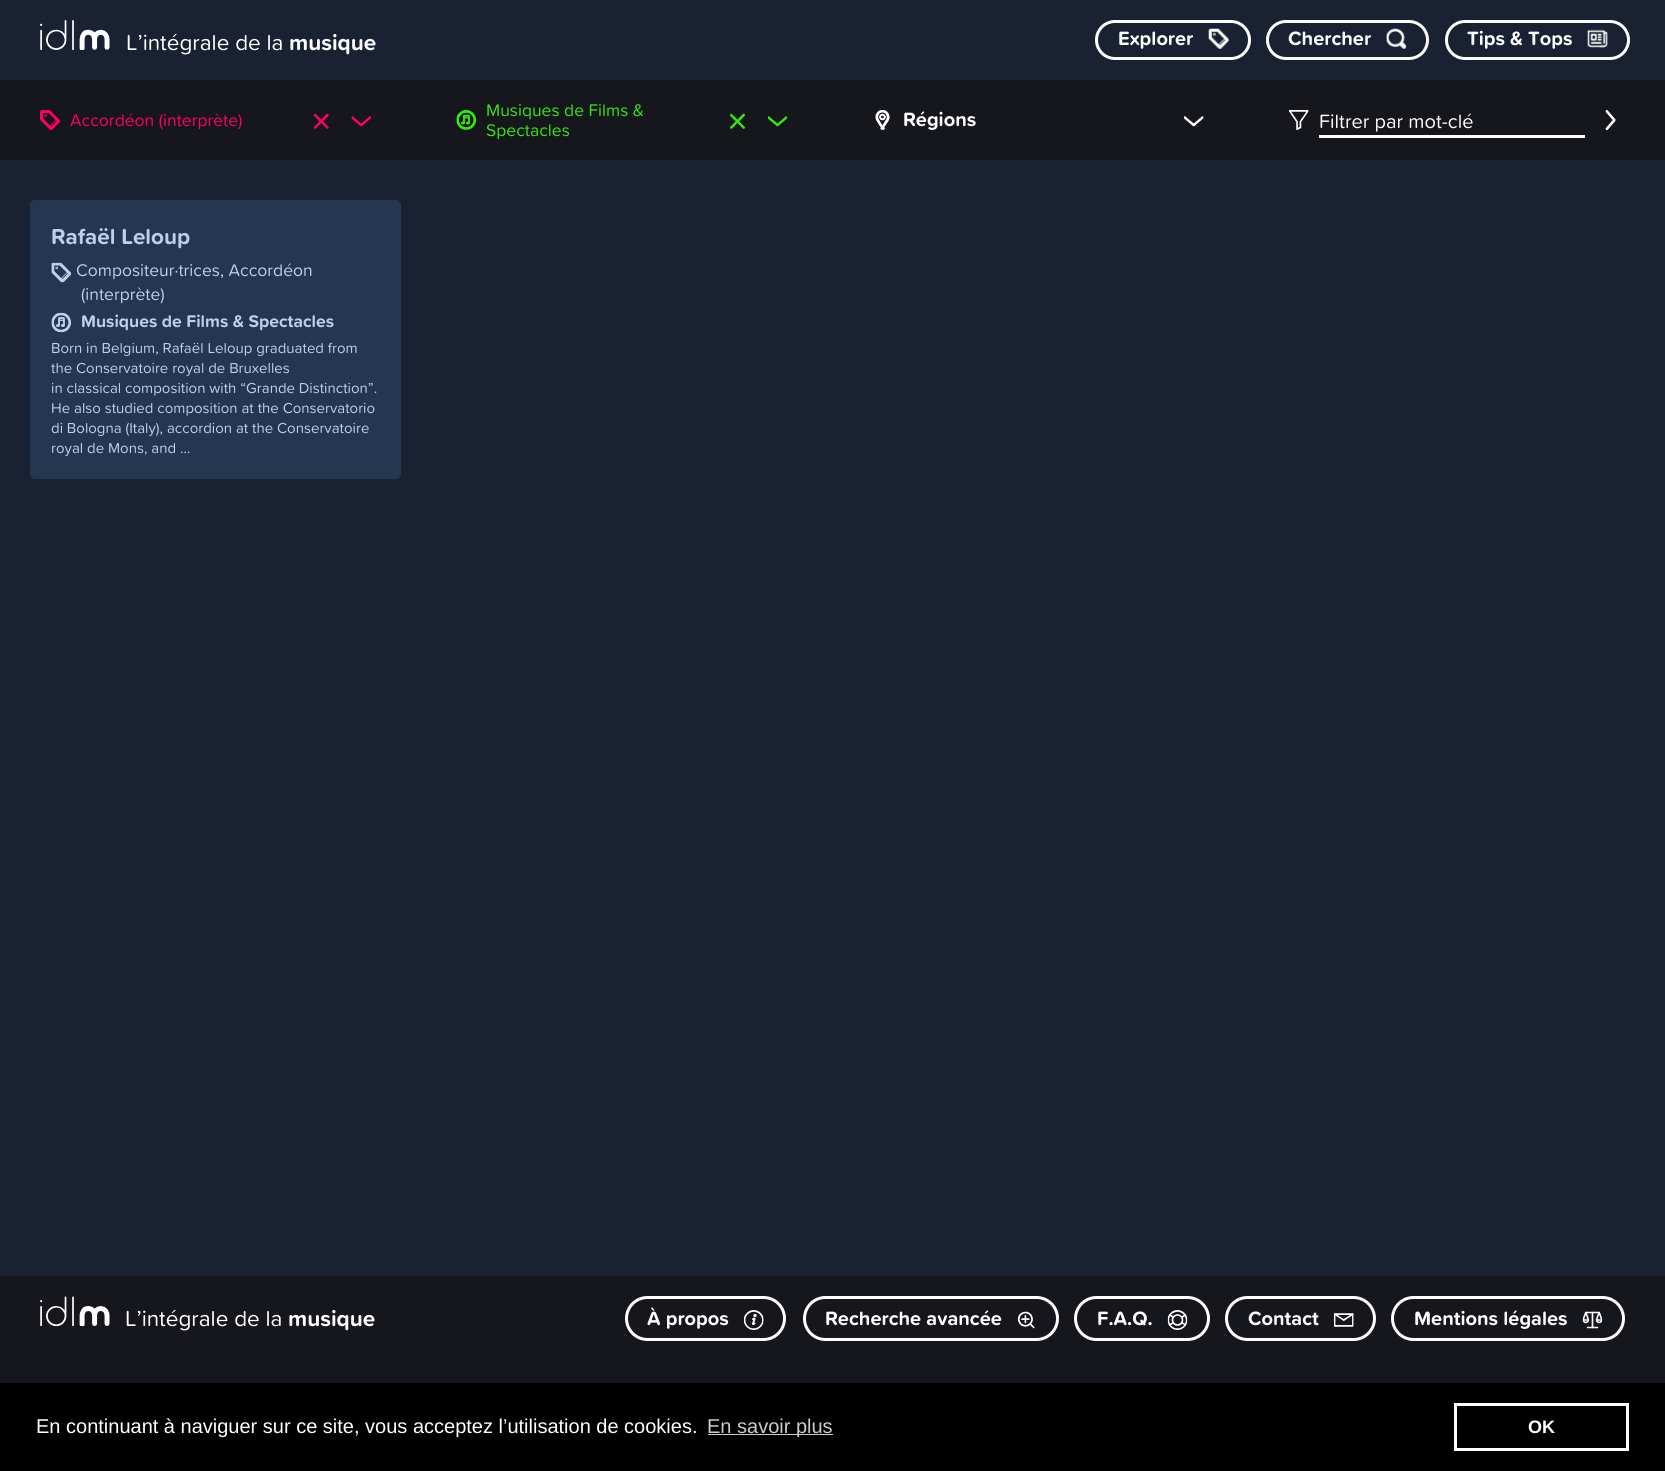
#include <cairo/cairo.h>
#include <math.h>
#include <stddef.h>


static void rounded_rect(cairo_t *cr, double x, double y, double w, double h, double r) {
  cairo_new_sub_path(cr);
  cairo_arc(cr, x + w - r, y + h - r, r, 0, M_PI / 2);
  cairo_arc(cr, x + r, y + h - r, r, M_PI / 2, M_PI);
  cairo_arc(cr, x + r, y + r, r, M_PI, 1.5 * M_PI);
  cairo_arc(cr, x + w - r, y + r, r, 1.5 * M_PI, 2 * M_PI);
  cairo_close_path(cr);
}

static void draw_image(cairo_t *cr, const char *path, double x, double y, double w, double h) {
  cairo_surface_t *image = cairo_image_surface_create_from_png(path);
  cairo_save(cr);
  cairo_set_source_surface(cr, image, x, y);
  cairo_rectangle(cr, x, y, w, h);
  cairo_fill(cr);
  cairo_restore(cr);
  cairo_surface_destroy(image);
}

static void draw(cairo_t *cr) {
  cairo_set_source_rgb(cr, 22 / 255.0, 22 / 255.0, 29 / 255.0);
  cairo_paint(cr);
  cairo_set_source_rgb(cr, 25 / 255.0, 33 / 255.0, 51 / 255.0);
  cairo_rectangle(cr, 0, 0, 1665, 80);
  cairo_fill(cr);
  draw_image(cr, "images/1.png", 40, 20, 70, 30);
  rounded_rect(cr, 1096.5, 21.5, 153, 37, 18.5);
  cairo_set_source_rgb(cr, 1, 1, 1);
  cairo_set_line_width(cr, 3);
  cairo_stroke(cr);
  draw_image(cr, "images/2.png", 1208, 28, 21, 21);
  rounded_rect(cr, 1267.5, 21.5, 160, 37, 18.5);
  cairo_stroke(cr);
  draw_image(cr, "images/3.png", 1385, 28, 22, 21);
  rounded_rect(cr, 1446.5, 21.5, 182, 37, 18.5);
  cairo_stroke(cr);
  draw_image(cr, "images/4.png", 1587, 29, 21, 19);
  draw_image(cr, "images/5.png", 40, 110, 20, 20);
  draw_image(cr, "images/6.png", 313, 113, 16, 16);
  draw_image(cr, "images/7.png", 351, 116, 20, 11);
  draw_image(cr, "images/8.png", 456, 110, 20, 20);
  draw_image(cr, "images/9.png", 730, 113, 15, 16);
  draw_image(cr, "images/10.png", 767, 116, 21, 11);
  draw_image(cr, "images/11.png", 875, 110, 15, 20);
  draw_image(cr, "images/12.png", 1184, 116, 20, 11);
  draw_image(cr, "images/13.png", 1289, 110, 20, 20);
  cairo_rectangle(cr, 1319, 135, 266, 3);
  cairo_fill(cr);
  draw_image(cr, "images/14.png", 1605, 110, 11, 20);
  cairo_set_source_rgb(cr, 25 / 255.0, 33 / 255.0, 51 / 255.0);
  cairo_rectangle(cr, 0, 160, 1665, 1116);
  cairo_fill(cr);
  cairo_set_source_rgb(cr, 37 / 255.0, 54 / 255.0, 80 / 255.0);
  rounded_rect(cr, 30.5, 200.5, 370, 278, 4.5);
  cairo_fill_preserve(cr);
  cairo_set_line_width(cr, 1);
  cairo_stroke(cr);
  draw_image(cr, "images/15.png", 51, 262, 20, 21);
  draw_image(cr, "images/16.png", 51, 312, 20, 21);
  draw_image(cr, "images/17.png", 40, 1296, 70, 31);
  rounded_rect(cr, 626.5, 1297.5, 158, 42, 21);
  cairo_set_source_rgb(cr, 1, 1, 1);
  cairo_set_line_width(cr, 3);
  cairo_stroke(cr);
  draw_image(cr, "images/18.png", 744, 1310, 20, 20);
  rounded_rect(cr, 804.5, 1297.5, 253, 42, 21);
  cairo_stroke(cr);
  draw_image(cr, "images/19.png", 1017, 1311, 18, 18);
  rounded_rect(cr, 1075.5, 1297.5, 133, 42, 21);
  cairo_stroke(cr);
  draw_image(cr, "images/20.png", 1167, 1310, 21, 20);
  rounded_rect(cr, 1226.5, 1297.5, 148, 42, 21);
  cairo_stroke(cr);
  draw_image(cr, "images/21.png", 1334, 1313, 20, 14);
  rounded_rect(cr, 1392.5, 1297.5, 231, 42, 21);
  cairo_stroke(cr);
  draw_image(cr, "images/22.png", 1582, 1311, 21, 18);
  cairo_set_source_rgb(cr, 0, 0, 0);
  cairo_rectangle(cr, 0, 1383, 1665, 88);
  cairo_fill(cr);
  cairo_set_source_rgb(cr, 204 / 255.0, 204 / 255.0, 204 / 255.0);
  cairo_rectangle(cr, 708, 1434, 125, 1);
  cairo_fill(cr);
  cairo_rectangle(cr, 1455.5, 1404.5, 172, 45);
  cairo_set_source_rgb(cr, 1, 1, 1);
  cairo_stroke(cr);
  cairo_select_font_face(cr, "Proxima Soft", CAIRO_FONT_SLANT_NORMAL, CAIRO_FONT_WEIGHT_NORMAL);
  cairo_set_font_size(cr, 22.5);
  cairo_move_to(cr, 126, 50);
  cairo_show_text(cr, "L’intégrale de la");
  cairo_select_font_face(cr, "Proxima Soft", CAIRO_FONT_SLANT_NORMAL, CAIRO_FONT_WEIGHT_BOLD);
  cairo_move_to(cr, 289, 50);
  cairo_show_text(cr, "musique");
  cairo_set_font_size(cr, 20);
  cairo_move_to(cr, 1118, 45);
  cairo_show_text(cr, "Explorer");
  cairo_move_to(cr, 1288, 45);
  cairo_show_text(cr, "Chercher");
  cairo_move_to(cr, 1467, 45);
  cairo_show_text(cr, "Tips & Tops");
  cairo_select_font_face(cr, "Proxima Soft", CAIRO_FONT_SLANT_NORMAL, CAIRO_FONT_WEIGHT_NORMAL);
  cairo_set_font_size(cr, 17.5);
  cairo_set_source_rgb(cr, 1, 0, 92 / 255.0);
  cairo_move_to(cr, 70, 126);
  cairo_show_text(cr, "Accordéon (interprète)");
  cairo_set_source_rgb(cr, 52 / 255.0, 230 / 255.0, 18 / 255.0);
  cairo_move_to(cr, 486, 116);
  cairo_show_text(cr, "Musiques de Films &");
  cairo_move_to(cr, 486, 136);
  cairo_show_text(cr, "Spectacles");
  cairo_select_font_face(cr, "Proxima Soft", CAIRO_FONT_SLANT_NORMAL, CAIRO_FONT_WEIGHT_BOLD);
  cairo_set_font_size(cr, 20);
  cairo_set_source_rgb(cr, 1, 1, 1);
  cairo_move_to(cr, 903, 126);
  cairo_show_text(cr, "Régions");
  cairo_select_font_face(cr, "Proxima Soft", CAIRO_FONT_SLANT_NORMAL, CAIRO_FONT_WEIGHT_NORMAL);
  cairo_move_to(cr, 1319, 128);
  cairo_show_text(cr, "Filtrer par mot-clé");
  cairo_select_font_face(cr, "Proxima Soft", CAIRO_FONT_SLANT_NORMAL, CAIRO_FONT_WEIGHT_BOLD);
  cairo_set_font_size(cr, 22.5);
  cairo_set_source_rgb(cr, 188 / 255.0, 207 / 255.0, 235 / 255.0);
  cairo_move_to(cr, 51, 244);
  cairo_show_text(cr, "Rafaël Leloup");
  cairo_select_font_face(cr, "Proxima Soft", CAIRO_FONT_SLANT_NORMAL, CAIRO_FONT_WEIGHT_NORMAL);
  cairo_set_font_size(cr, 17.5);
  cairo_move_to(cr, 76, 276);
  cairo_show_text(cr, "Compositeur·trices, Accordéon");
  cairo_move_to(cr, 81, 300);
  cairo_show_text(cr, "(interprète)");
  cairo_select_font_face(cr, "Proxima Soft", CAIRO_FONT_SLANT_NORMAL, CAIRO_FONT_WEIGHT_BOLD);
  cairo_move_to(cr, 81, 327);
  cairo_show_text(cr, "Musiques de Films & Spectacles");
  cairo_select_font_face(cr, "Proxima Soft", CAIRO_FONT_SLANT_NORMAL, CAIRO_FONT_WEIGHT_NORMAL);
  cairo_set_font_size(cr, 15);
  cairo_move_to(cr, 51, 353);
  cairo_show_text(cr, "Born in Belgium, Rafaël Leloup graduated from");
  cairo_move_to(cr, 51, 373);
  cairo_show_text(cr, "the Conservatoire royal de Bruxelles");
  cairo_move_to(cr, 51, 393);
  cairo_show_text(cr, "in classical composition with “Grande Distinction”.");
  cairo_move_to(cr, 51, 413);
  cairo_show_text(cr, "He also studied composition at the Conservatorio");
  cairo_move_to(cr, 51, 433);
  cairo_show_text(cr, "di Bologna (Italy), accordion at the Conservatoire");
  cairo_move_to(cr, 51, 453);
  cairo_show_text(cr, "royal de Mons, and …");
  cairo_set_font_size(cr, 22.5);
  cairo_set_source_rgb(cr, 1, 1, 1);
  cairo_move_to(cr, 125, 1326);
  cairo_show_text(cr, "L’intégrale de la");
  cairo_select_font_face(cr, "Proxima Soft", CAIRO_FONT_SLANT_NORMAL, CAIRO_FONT_WEIGHT_BOLD);
  cairo_move_to(cr, 288, 1326);
  cairo_show_text(cr, "musique");
  cairo_set_font_size(cr, 20);
  cairo_move_to(cr, 647, 1325);
  cairo_show_text(cr, "À propos");
  cairo_move_to(cr, 825, 1325);
  cairo_show_text(cr, "Recherche avancée");
  cairo_move_to(cr, 1097, 1325);
  cairo_show_text(cr, "F.A.Q.");
  cairo_move_to(cr, 1248, 1325);
  cairo_show_text(cr, "Contact");
  cairo_move_to(cr, 1414, 1325);
  cairo_show_text(cr, "Mentions légales");
  cairo_select_font_face(cr, "Liberation Sans", CAIRO_FONT_SLANT_NORMAL, CAIRO_FONT_WEIGHT_NORMAL);
  cairo_move_to(cr, 36, 1433);
  cairo_show_text(cr, "En continuant à naviguer sur ce site, vous acceptez l’utilisation de cookies.");
  cairo_set_source_rgb(cr, 204 / 255.0, 204 / 255.0, 204 / 255.0);
  cairo_move_to(cr, 707, 1433);
  cairo_show_text(cr, "En savoir plus");
  cairo_select_font_face(cr, "Liberation Sans", CAIRO_FONT_SLANT_NORMAL, CAIRO_FONT_WEIGHT_BOLD);
  cairo_set_font_size(cr, 18);
  cairo_set_source_rgb(cr, 1, 1, 1);
  cairo_move_to(cr, 1528, 1433);
  cairo_show_text(cr, "OK");
}

int main(void) {
  cairo_surface_t *surface = cairo_image_surface_create(CAIRO_FORMAT_RGB24, 1665, 1471);
  cairo_t *cr = cairo_create(surface);
  cairo_font_options_t *options = cairo_font_options_create();
  cairo_font_options_set_hint_metrics(options, CAIRO_HINT_METRICS_OFF);
  cairo_font_options_set_hint_style(options, CAIRO_HINT_STYLE_NONE);
  cairo_set_font_options(cr, options);
  cairo_set_miter_limit(cr, 4);
  draw(cr);
  cairo_surface_write_to_png(surface, "out.png");
  cairo_font_options_destroy(options);
  cairo_destroy(cr);
  cairo_surface_destroy(surface);
  return 0;
}
